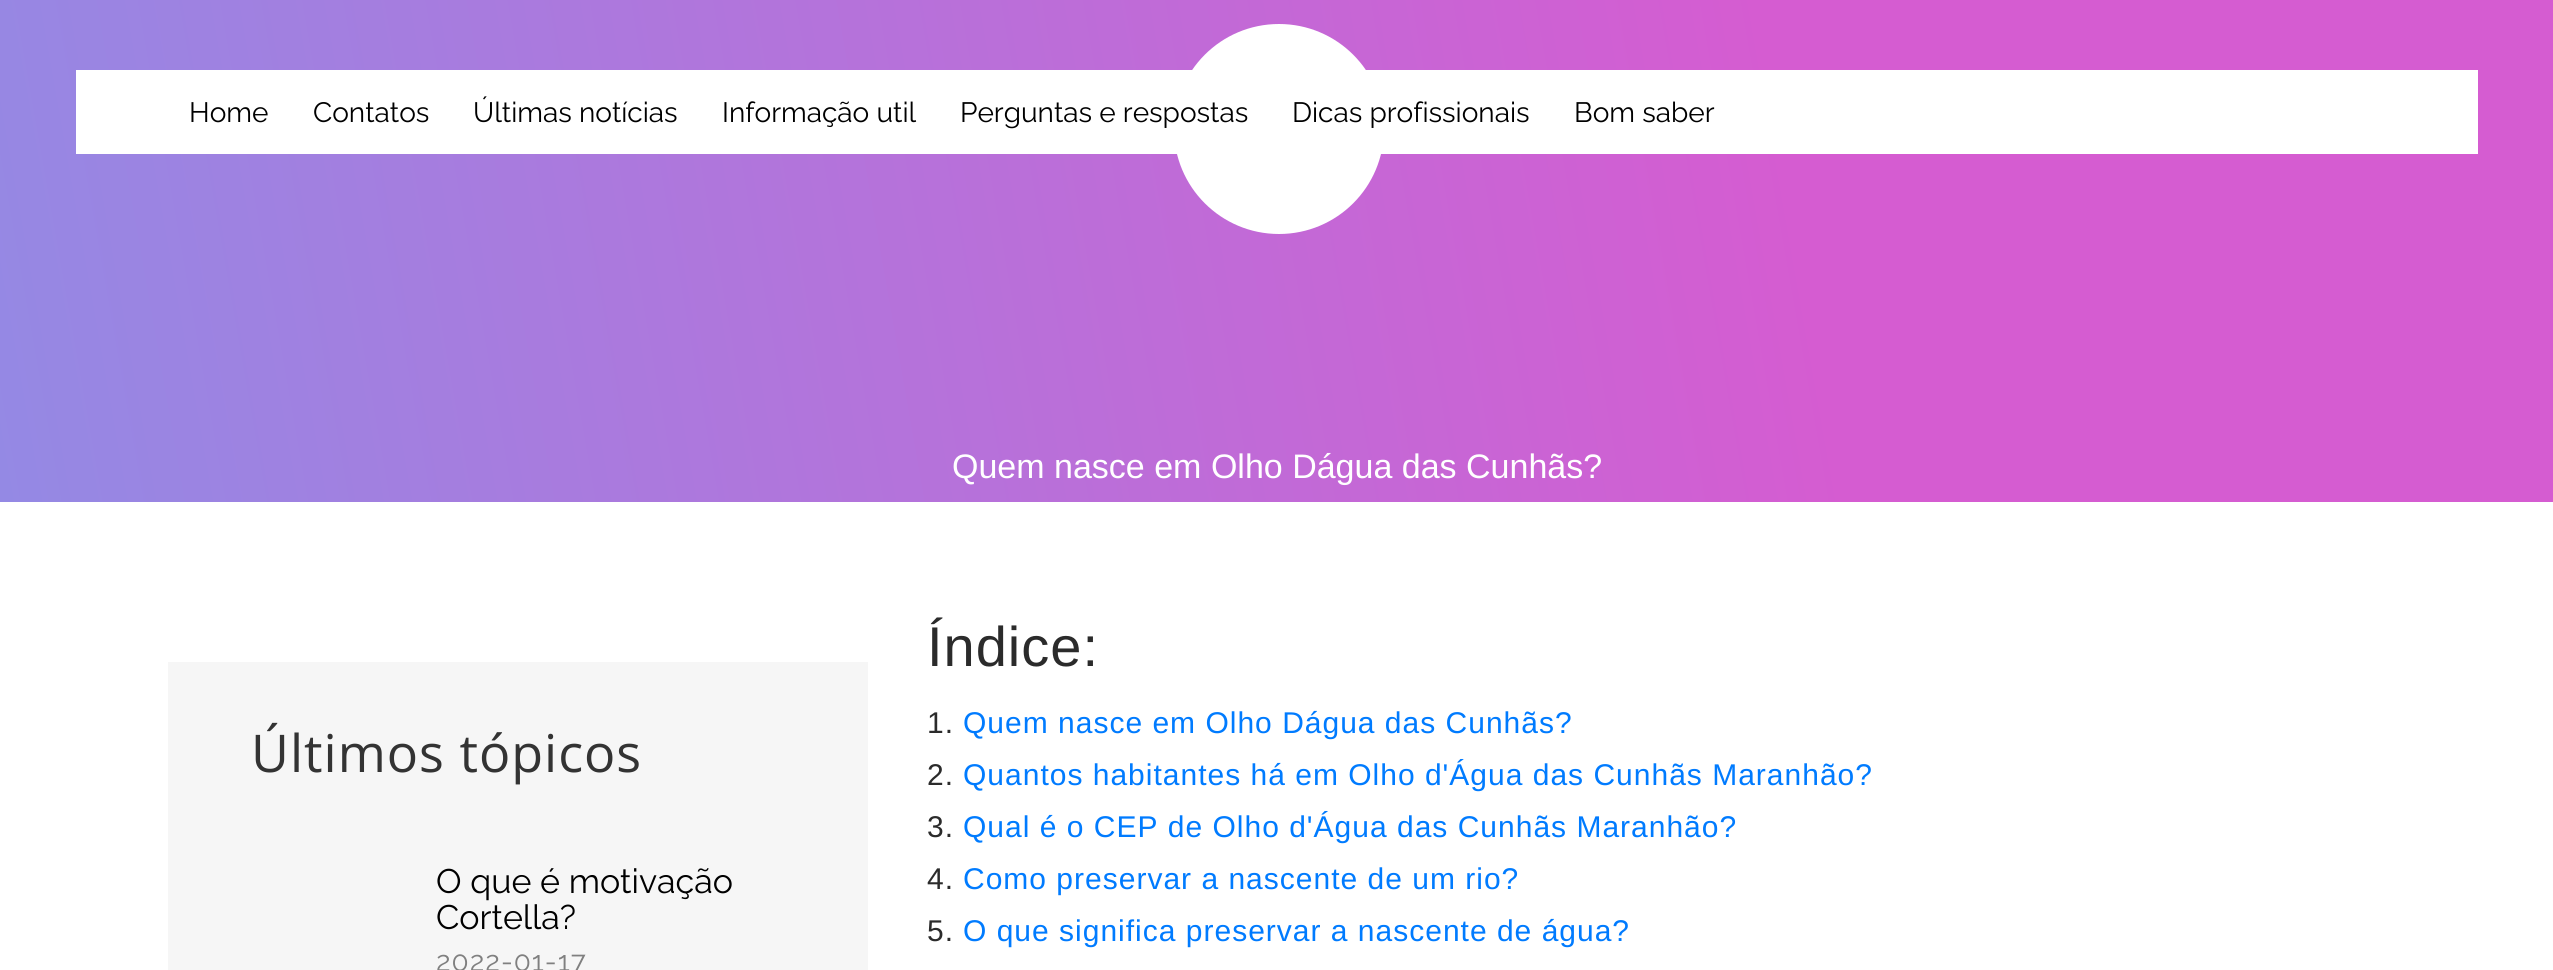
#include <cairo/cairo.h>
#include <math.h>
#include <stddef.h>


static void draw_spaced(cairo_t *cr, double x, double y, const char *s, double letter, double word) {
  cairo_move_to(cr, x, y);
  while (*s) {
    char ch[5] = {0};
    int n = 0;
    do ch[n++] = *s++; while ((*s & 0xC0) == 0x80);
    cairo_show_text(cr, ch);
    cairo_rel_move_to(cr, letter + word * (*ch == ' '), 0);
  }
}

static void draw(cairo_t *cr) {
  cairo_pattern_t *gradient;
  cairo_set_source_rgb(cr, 1, 1, 1);
  cairo_paint(cr);
  gradient = cairo_pattern_create_linear(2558, 25, -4.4, 477);
  cairo_pattern_add_color_stop_rgba(gradient, 0.3, 213 / 255.0, 92 / 255.0, 209 / 255.0, 1);
  cairo_pattern_add_color_stop_rgba(gradient, 1, 148 / 255.0, 137 / 255.0, 228 / 255.0, 1);
  cairo_set_source(cr, gradient);
  cairo_pattern_destroy(gradient);
  cairo_rectangle(cr, 0, 0, 2553, 502);
  cairo_fill(cr);
  cairo_set_source_rgb(cr, 1, 1, 1);
  cairo_arc(cr, 1279, 129, 105, 0, 2 * M_PI);
  cairo_fill(cr);
  cairo_rectangle(cr, 76, 70, 2402, 84);
  cairo_fill(cr);
  cairo_set_source_rgb(cr, 246 / 255.0, 246 / 255.0, 246 / 255.0);
  cairo_rectangle(cr, 168, 662, 700, 308);
  cairo_fill(cr);
  cairo_select_font_face(cr, "Raleway", CAIRO_FONT_SLANT_NORMAL, CAIRO_FONT_WEIGHT_NORMAL);
  cairo_set_font_size(cr, 28);
  cairo_set_source_rgb(cr, 0, 0, 0);
  cairo_move_to(cr, 189, 122);
  cairo_show_text(cr, "Home");
  cairo_move_to(cr, 313, 122);
  cairo_show_text(cr, "Contatos");
  cairo_move_to(cr, 473, 122);
  cairo_show_text(cr, "Últimas notícias");
  cairo_move_to(cr, 722, 122);
  cairo_show_text(cr, "Informação util");
  cairo_move_to(cr, 960, 122);
  cairo_show_text(cr, "Perguntas e respostas");
  cairo_move_to(cr, 1292, 122);
  cairo_show_text(cr, "Dicas profissionais");
  cairo_move_to(cr, 1574, 122);
  cairo_show_text(cr, "Bom saber");
  cairo_select_font_face(cr, "Liberation Sans", CAIRO_FONT_SLANT_NORMAL, CAIRO_FONT_WEIGHT_NORMAL);
  cairo_set_font_size(cr, 34);
  cairo_set_source_rgb(cr, 1, 1, 1);
  cairo_move_to(cr, 952, 478);
  cairo_show_text(cr, "Quem nasce em Olho Dágua das Cunhãs?");
  cairo_select_font_face(cr, "Open Sans", CAIRO_FONT_SLANT_NORMAL, CAIRO_FONT_WEIGHT_NORMAL);
  cairo_set_font_size(cr, 52);
  cairo_set_source_rgb(cr, 51 / 255.0, 51 / 255.0, 51 / 255.0);
  draw_spaced(cr, 251, 772, "Últimos tópicos", 1, 0);
  cairo_select_font_face(cr, "Raleway", CAIRO_FONT_SLANT_NORMAL, CAIRO_FONT_WEIGHT_NORMAL);
  cairo_set_font_size(cr, 34);
  cairo_set_source_rgb(cr, 0, 0, 0);
  cairo_move_to(cr, 436, 893);
  cairo_show_text(cr, "O que é motivação");
  cairo_move_to(cr, 436, 929);
  cairo_show_text(cr, "Cortella?");
  cairo_set_font_size(cr, 28);
  cairo_set_source_rgb(cr, 128 / 255.0, 128 / 255.0, 128 / 255.0);
  draw_spaced(cr, 436, 971, "2022-01-17", 1, 0);
  cairo_select_font_face(cr, "Liberation Sans", CAIRO_FONT_SLANT_NORMAL, CAIRO_FONT_WEIGHT_NORMAL);
  cairo_set_font_size(cr, 56);
  cairo_set_source_rgb(cr, 43 / 255.0, 43 / 255.0, 43 / 255.0);
  draw_spaced(cr, 927, 666, "Índice:", 1, 0);
  cairo_set_font_size(cr, 30);
  draw_spaced(cr, 927, 733, "1.", 1, 0);
  cairo_set_source_rgb(cr, 0, 123 / 255.0, 1);
  draw_spaced(cr, 963, 733, "Quem nasce em Olho Dágua das Cunhãs?", 1, 0);
  cairo_set_source_rgb(cr, 43 / 255.0, 43 / 255.0, 43 / 255.0);
  draw_spaced(cr, 927, 785, "2.", 1, 0);
  cairo_set_source_rgb(cr, 0, 123 / 255.0, 1);
  draw_spaced(cr, 963, 785, "Quantos habitantes há em Olho d'Água das Cunhãs Maranhão?", 1, 0);
  cairo_set_source_rgb(cr, 43 / 255.0, 43 / 255.0, 43 / 255.0);
  draw_spaced(cr, 927, 837, "3.", 1, 0);
  cairo_set_source_rgb(cr, 0, 123 / 255.0, 1);
  draw_spaced(cr, 963, 837, "Qual é o CEP de Olho d'Água das Cunhãs Maranhão?", 1, 0);
  cairo_set_source_rgb(cr, 43 / 255.0, 43 / 255.0, 43 / 255.0);
  draw_spaced(cr, 927, 889, "4.", 1, 0);
  cairo_set_source_rgb(cr, 0, 123 / 255.0, 1);
  draw_spaced(cr, 963, 889, "Como preservar a nascente de um rio?", 1, 0);
  cairo_set_source_rgb(cr, 43 / 255.0, 43 / 255.0, 43 / 255.0);
  draw_spaced(cr, 927, 941, "5.", 1, 0);
  cairo_set_source_rgb(cr, 0, 123 / 255.0, 1);
  draw_spaced(cr, 963, 941, "O que significa preservar a nascente de água?", 1, 0);
}

int main(void) {
  cairo_surface_t *surface = cairo_image_surface_create(CAIRO_FORMAT_RGB24, 2553, 970);
  cairo_t *cr = cairo_create(surface);
  cairo_font_options_t *options = cairo_font_options_create();
  cairo_font_options_set_hint_metrics(options, CAIRO_HINT_METRICS_OFF);
  cairo_font_options_set_hint_style(options, CAIRO_HINT_STYLE_NONE);
  cairo_set_font_options(cr, options);
  cairo_set_miter_limit(cr, 4);
  draw(cr);
  cairo_surface_write_to_png(surface, "out.png");
  cairo_font_options_destroy(options);
  cairo_destroy(cr);
  cairo_surface_destroy(surface);
  return 0;
}
